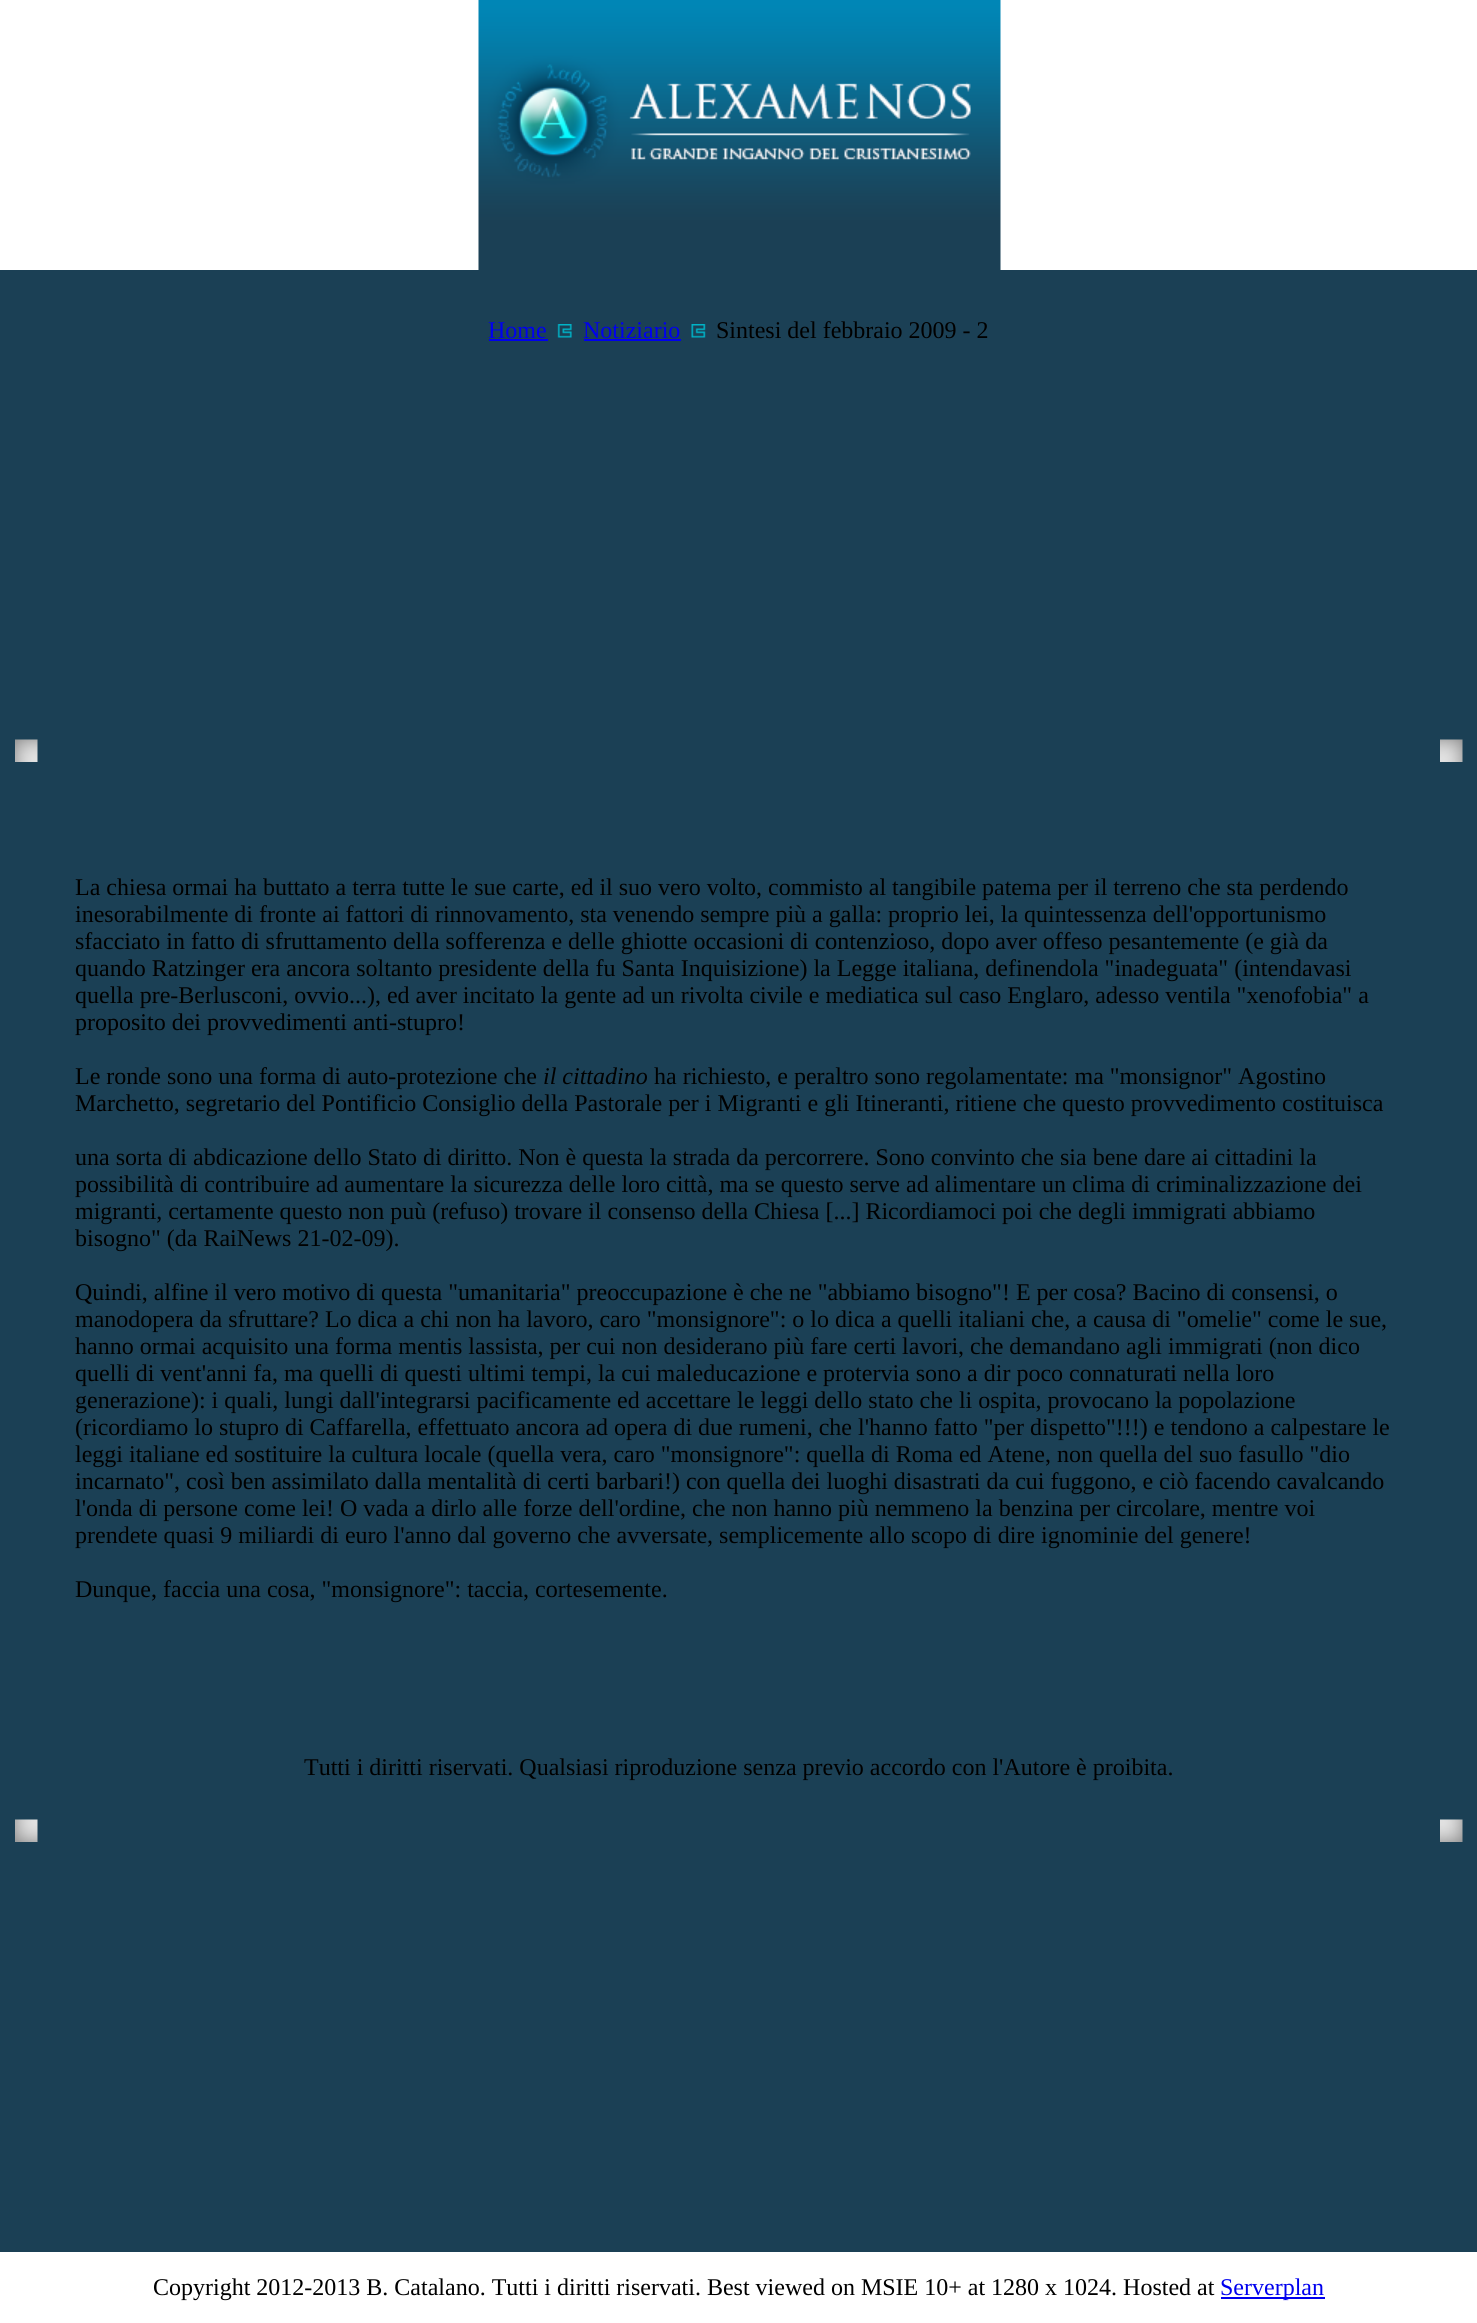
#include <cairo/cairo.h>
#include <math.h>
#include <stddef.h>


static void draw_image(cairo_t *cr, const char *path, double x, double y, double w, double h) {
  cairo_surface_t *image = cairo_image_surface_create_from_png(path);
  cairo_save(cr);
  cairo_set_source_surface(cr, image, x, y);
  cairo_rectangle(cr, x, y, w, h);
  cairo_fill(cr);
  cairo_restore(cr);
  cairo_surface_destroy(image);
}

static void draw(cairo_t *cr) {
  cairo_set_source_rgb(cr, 1, 1, 1);
  cairo_paint(cr);
  draw_image(cr, "images/1.png", 478, 0, 523, 270);
  cairo_set_source_rgb(cr, 27 / 255.0, 64 / 255.0, 85 / 255.0);
  cairo_rectangle(cr, 0, 270, 1477, 1982);
  cairo_fill(cr);
  cairo_set_source_rgb(cr, 0, 0, 238 / 255.0);
  cairo_rectangle(cr, 489, 339, 59, 2);
  cairo_fill(cr);
  draw_image(cr, "images/2.png", 557, 324, 15, 14);
  cairo_rectangle(cr, 584, 339, 97, 2);
  cairo_fill(cr);
  draw_image(cr, "images/3.png", 691, 324, 15, 14);
  draw_image(cr, "images/4.png", 15, 739, 23, 23);
  draw_image(cr, "images/5.png", 1440, 739, 23, 23);
  draw_image(cr, "images/6.png", 15, 1819, 23, 23);
  draw_image(cr, "images/7.png", 1440, 1819, 23, 23);
  cairo_rectangle(cr, 1221, 2297, 104, 2);
  cairo_fill(cr);
  cairo_select_font_face(cr, "Liberation Serif", CAIRO_FONT_SLANT_NORMAL, CAIRO_FONT_WEIGHT_NORMAL);
  cairo_set_font_size(cr, 24);
  cairo_move_to(cr, 488, 338);
  cairo_show_text(cr, "Home");
  cairo_move_to(cr, 583, 338);
  cairo_show_text(cr, "Notiziario");
  cairo_set_source_rgb(cr, 0, 0, 0);
  cairo_move_to(cr, 716, 338);
  cairo_show_text(cr, "Sintesi del febbraio 2009 - 2");
  cairo_move_to(cr, 75, 895);
  cairo_show_text(cr, "La chiesa ormai ha buttato a terra tutte le sue carte, ed il suo vero volto, commisto al tangibile patema per il terreno che sta perdendo");
  cairo_move_to(cr, 75, 922);
  cairo_show_text(cr, "inesorabilmente di fronte ai fattori di rinnovamento, sta venendo sempre più a galla: proprio lei, la quintessenza dell'opportunismo");
  cairo_move_to(cr, 75, 949);
  cairo_show_text(cr, "sfacciato in fatto di sfruttamento della sofferenza e delle ghiotte occasioni di contenzioso, dopo aver offeso pesantemente (e già da");
  cairo_move_to(cr, 75, 976);
  cairo_show_text(cr, "quando Ratzinger era ancora soltanto presidente della fu Santa Inquisizione) la Legge italiana, definendola \"inadeguata\" (intendavasi");
  cairo_move_to(cr, 75, 1003);
  cairo_show_text(cr, "quella pre-Berlusconi, ovvio...), ed aver incitato la gente ad un rivolta civile e mediatica sul caso Englaro, adesso ventila \"xenofobia\" a");
  cairo_move_to(cr, 75, 1030);
  cairo_show_text(cr, "proposito dei provvedimenti anti-stupro!");
  cairo_move_to(cr, 75, 1084);
  cairo_show_text(cr, "Le ronde sono una forma di auto-protezione che");
  cairo_select_font_face(cr, "Liberation Serif", CAIRO_FONT_SLANT_ITALIC, CAIRO_FONT_WEIGHT_NORMAL);
  cairo_move_to(cr, 543, 1084);
  cairo_show_text(cr, "il cittadino");
  cairo_select_font_face(cr, "Liberation Serif", CAIRO_FONT_SLANT_NORMAL, CAIRO_FONT_WEIGHT_NORMAL);
  cairo_move_to(cr, 654, 1084);
  cairo_show_text(cr, "ha richiesto, e peraltro sono regolamentate: ma \"monsignor\" Agostino");
  cairo_move_to(cr, 75, 1111);
  cairo_show_text(cr, "Marchetto, segretario del Pontificio Consiglio della Pastorale per i Migranti e gli Itineranti, ritiene che questo provvedimento costituisca");
  cairo_move_to(cr, 75, 1165);
  cairo_show_text(cr, "una sorta di abdicazione dello Stato di diritto. Non è questa la strada da percorrere. Sono convinto che sia bene dare ai cittadini la");
  cairo_move_to(cr, 75, 1192);
  cairo_show_text(cr, "possibilità di contribuire ad aumentare la sicurezza delle loro città, ma se questo serve ad alimentare un clima di criminalizzazione dei");
  cairo_move_to(cr, 75, 1219);
  cairo_show_text(cr, "migranti, certamente questo non puù (refuso) trovare il consenso della Chiesa [...] Ricordiamoci poi che degli immigrati abbiamo");
  cairo_move_to(cr, 75, 1246);
  cairo_show_text(cr, "bisogno\" (da RaiNews 21-02-09).");
  cairo_move_to(cr, 75, 1300);
  cairo_show_text(cr, "Quindi, alfine il vero motivo di questa \"umanitaria\" preoccupazione è che ne \"abbiamo bisogno\"! E per cosa? Bacino di consensi, o");
  cairo_move_to(cr, 75, 1327);
  cairo_show_text(cr, "manodopera da sfruttare? Lo dica a chi non ha lavoro, caro \"monsignore\": o lo dica a quelli italiani che, a causa di \"omelie\" come le sue,");
  cairo_move_to(cr, 75, 1354);
  cairo_show_text(cr, "hanno ormai acquisito una forma mentis lassista, per cui non desiderano più fare certi lavori, che demandano agli immigrati (non dico");
  cairo_move_to(cr, 75, 1381);
  cairo_show_text(cr, "quelli di vent'anni fa, ma quelli di questi ultimi tempi, la cui maleducazione e protervia sono a dir poco connaturati nella loro");
  cairo_move_to(cr, 75, 1408);
  cairo_show_text(cr, "generazione): i quali, lungi dall'integrarsi pacificamente ed accettare le leggi dello stato che li ospita, provocano la popolazione");
  cairo_move_to(cr, 75, 1435);
  cairo_show_text(cr, "(ricordiamo lo stupro di Caffarella, effettuato ancora ad opera di due rumeni, che l'hanno fatto \"per dispetto\"!!!) e tendono a calpestare le");
  cairo_move_to(cr, 75, 1462);
  cairo_show_text(cr, "leggi italiane ed sostituire la cultura locale (quella vera, caro \"monsignore\": quella di Roma ed Atene, non quella del suo fasullo \"dio");
  cairo_move_to(cr, 75, 1489);
  cairo_show_text(cr, "incarnato\", così ben assimilato dalla mentalità di certi barbari!) con quella dei luoghi disastrati da cui fuggono, e ciò facendo cavalcando");
  cairo_move_to(cr, 75, 1516);
  cairo_show_text(cr, "l'onda di persone come lei! O vada a dirlo alle forze dell'ordine, che non hanno più nemmeno la benzina per circolare, mentre voi");
  cairo_move_to(cr, 75, 1543);
  cairo_show_text(cr, "prendete quasi 9 miliardi di euro l'anno dal governo che avversate, semplicemente allo scopo di dire ignominie del genere!");
  cairo_move_to(cr, 75, 1597);
  cairo_show_text(cr, "Dunque, faccia una cosa, \"monsignore\": taccia, cortesemente.");
  cairo_move_to(cr, 304, 1775);
  cairo_show_text(cr, "Tutti i diritti riservati. Qualsiasi riproduzione senza previo accordo con l'Autore è proibita.");
  cairo_move_to(cr, 153, 2295);
  cairo_show_text(cr, "Copyright 2012-2013 B. Catalano. Tutti i diritti riservati. Best viewed on MSIE 10+ at 1280 x 1024. Hosted at");
  cairo_set_source_rgb(cr, 0, 0, 238 / 255.0);
  cairo_move_to(cr, 1220, 2295);
  cairo_show_text(cr, "Serverplan");
}

int main(void) {
  cairo_surface_t *surface = cairo_image_surface_create(CAIRO_FORMAT_RGB24, 1477, 2323);
  cairo_t *cr = cairo_create(surface);
  cairo_font_options_t *options = cairo_font_options_create();
  cairo_font_options_set_hint_metrics(options, CAIRO_HINT_METRICS_OFF);
  cairo_font_options_set_hint_style(options, CAIRO_HINT_STYLE_NONE);
  cairo_set_font_options(cr, options);
  cairo_set_miter_limit(cr, 4);
  draw(cr);
  cairo_surface_write_to_png(surface, "out.png");
  cairo_font_options_destroy(options);
  cairo_destroy(cr);
  cairo_surface_destroy(surface);
  return 0;
}
